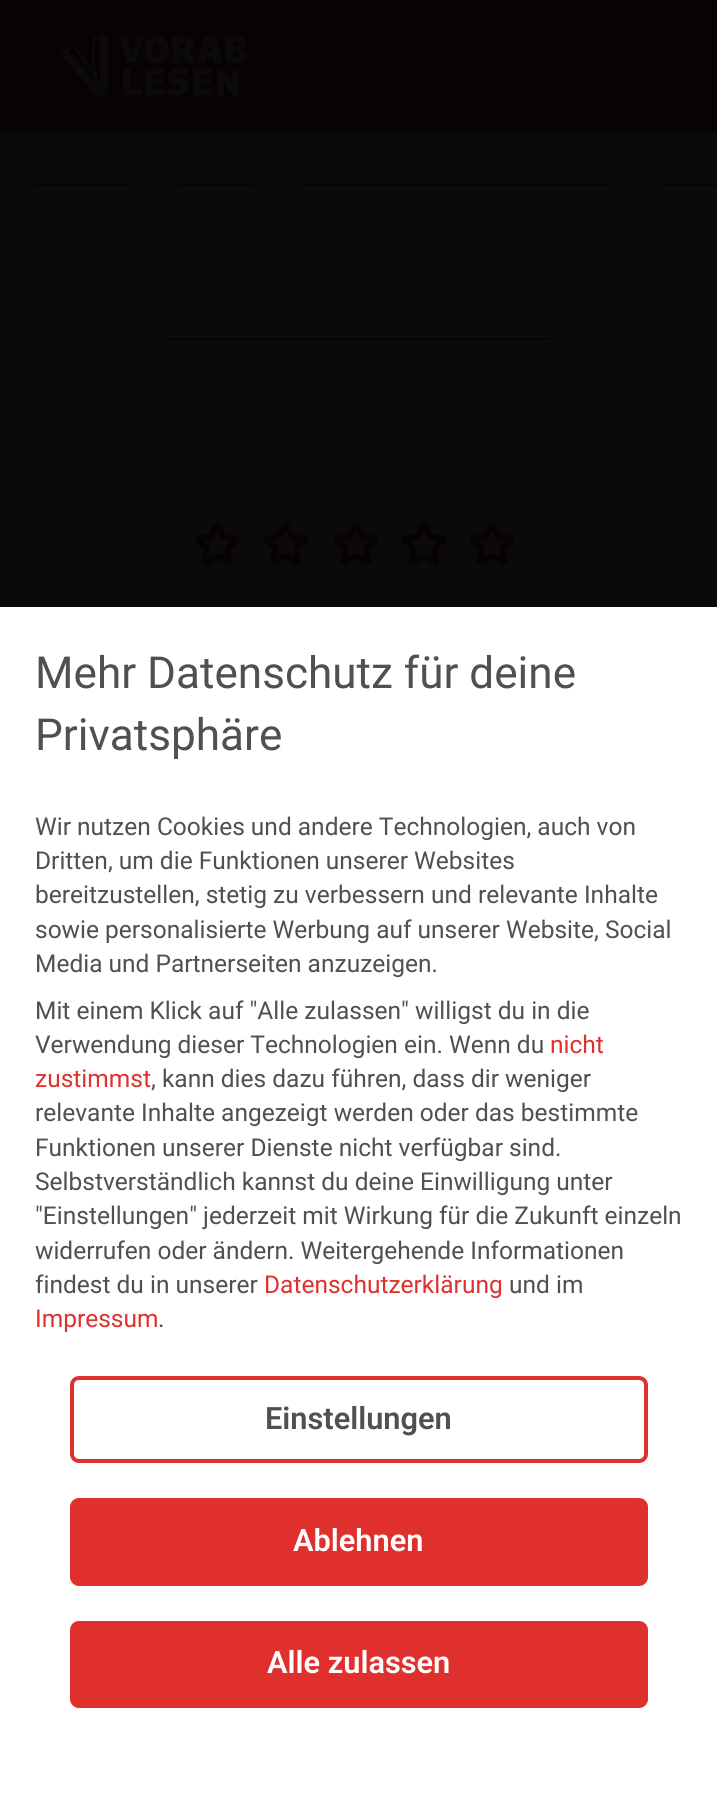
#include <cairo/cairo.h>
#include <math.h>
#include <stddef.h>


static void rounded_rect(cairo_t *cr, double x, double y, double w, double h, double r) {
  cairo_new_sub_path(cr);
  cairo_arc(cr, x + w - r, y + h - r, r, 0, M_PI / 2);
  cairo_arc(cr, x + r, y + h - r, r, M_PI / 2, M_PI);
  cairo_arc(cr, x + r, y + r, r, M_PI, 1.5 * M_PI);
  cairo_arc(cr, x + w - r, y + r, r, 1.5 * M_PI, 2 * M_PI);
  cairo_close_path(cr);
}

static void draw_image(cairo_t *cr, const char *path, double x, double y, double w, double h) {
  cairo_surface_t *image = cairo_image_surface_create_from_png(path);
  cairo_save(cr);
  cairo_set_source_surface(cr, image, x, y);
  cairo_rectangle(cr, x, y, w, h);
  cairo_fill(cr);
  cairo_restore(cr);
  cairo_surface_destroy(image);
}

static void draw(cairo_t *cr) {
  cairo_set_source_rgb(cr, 10 / 255.0, 10 / 255.0, 10 / 255.0);
  cairo_paint(cr);
  cairo_set_source_rgb(cr, 9 / 255.0, 2 / 255.0, 2 / 255.0);
  cairo_rectangle(cr, 0, 0, 717, 133);
  cairo_fill(cr);
  draw_image(cr, "images/1.png", 59, 35, 188, 61);
  cairo_rectangle(cr, 35, 184, 96, 2);
  cairo_fill(cr);
  cairo_rectangle(cr, 180, 184, 72, 2);
  cairo_fill(cr);
  cairo_rectangle(cr, 301, 184, 310, 2);
  cairo_fill(cr);
  cairo_rectangle(cr, 662, 184, 55, 2);
  cairo_fill(cr);
  cairo_rectangle(cr, 168, 338, 382, 2);
  cairo_fill(cr);
  draw_image(cr, "images/2.png", 194, 521, 46, 45);
  draw_image(cr, "images/3.png", 263, 521, 46, 45);
  draw_image(cr, "images/3.png", 333, 521, 46, 45);
  draw_image(cr, "images/4.png", 401, 521, 46, 45);
  draw_image(cr, "images/5.png", 469, 521, 46, 45);
  cairo_set_source_rgb(cr, 1, 1, 1);
  cairo_rectangle(cr, 0, 607, 717, 1209);
  cairo_fill(cr);
  rounded_rect(cr, 72, 1378, 574, 83, 7);
  cairo_set_source_rgb(cr, 224 / 255.0, 48 / 255.0, 46 / 255.0);
  cairo_set_line_width(cr, 4);
  cairo_stroke(cr);
  rounded_rect(cr, 72, 1500, 574, 84, 7);
  cairo_fill_preserve(cr);
  cairo_stroke(cr);
  rounded_rect(cr, 72, 1623, 574, 83, 7);
  cairo_fill_preserve(cr);
  cairo_stroke(cr);
  cairo_select_font_face(cr, "Roboto", CAIRO_FONT_SLANT_NORMAL, CAIRO_FONT_WEIGHT_NORMAL);
  cairo_set_font_size(cr, 44.1);
  cairo_set_source_rgb(cr, 80 / 255.0, 80 / 255.0, 80 / 255.0);
  cairo_move_to(cr, 35, 688);
  cairo_show_text(cr, "Mehr Datenschutz für deine");
  cairo_move_to(cr, 35, 750);
  cairo_show_text(cr, "Privatsphäre");
  cairo_set_font_size(cr, 24.5);
  cairo_move_to(cr, 35, 835);
  cairo_show_text(cr, "Wir nutzen Cookies und andere Technologien, auch von");
  cairo_move_to(cr, 35, 869);
  cairo_show_text(cr, "Dritten, um die Funktionen unserer Websites");
  cairo_move_to(cr, 35, 903);
  cairo_show_text(cr, "bereitzustellen, stetig zu verbessern und relevante Inhalte");
  cairo_move_to(cr, 35, 938);
  cairo_show_text(cr, "sowie personalisierte Werbung auf unserer Website, Social");
  cairo_move_to(cr, 35, 972);
  cairo_show_text(cr, "Media und Partnerseiten anzuzeigen.");
  cairo_move_to(cr, 35, 1019);
  cairo_show_text(cr, "Mit einem Klick auf \"Alle zulassen\" willigst du in die");
  cairo_move_to(cr, 35, 1053);
  cairo_show_text(cr, "Verwendung dieser Technologien ein. Wenn du");
  cairo_set_source_rgb(cr, 224 / 255.0, 48 / 255.0, 46 / 255.0);
  cairo_move_to(cr, 550, 1053);
  cairo_show_text(cr, "nicht");
  cairo_move_to(cr, 35, 1087);
  cairo_show_text(cr, "zustimmst");
  cairo_set_source_rgb(cr, 80 / 255.0, 80 / 255.0, 80 / 255.0);
  cairo_move_to(cr, 151, 1087);
  cairo_show_text(cr, ", kann dies dazu führen, dass dir weniger");
  cairo_move_to(cr, 35, 1121);
  cairo_show_text(cr, "relevante Inhalte angezeigt werden oder das bestimmte");
  cairo_move_to(cr, 35, 1156);
  cairo_show_text(cr, "Funktionen unserer Dienste nicht verfügbar sind.");
  cairo_move_to(cr, 35, 1190);
  cairo_show_text(cr, "Selbstverständlich kannst du deine Einwilligung unter");
  cairo_move_to(cr, 35, 1224);
  cairo_show_text(cr, "\"Einstellungen\" jederzeit mit Wirkung für die Zukunft einzeln");
  cairo_move_to(cr, 35, 1259);
  cairo_show_text(cr, "widerrufen oder ändern. Weitergehende Informationen");
  cairo_move_to(cr, 35, 1293);
  cairo_show_text(cr, "findest du in unserer");
  cairo_set_source_rgb(cr, 224 / 255.0, 48 / 255.0, 46 / 255.0);
  cairo_move_to(cr, 264, 1293);
  cairo_show_text(cr, "Datenschutzerklärung");
  cairo_set_source_rgb(cr, 80 / 255.0, 80 / 255.0, 80 / 255.0);
  cairo_move_to(cr, 509, 1293);
  cairo_show_text(cr, "und im");
  cairo_set_source_rgb(cr, 224 / 255.0, 48 / 255.0, 46 / 255.0);
  cairo_move_to(cr, 35, 1327);
  cairo_show_text(cr, "Impressum");
  cairo_set_source_rgb(cr, 80 / 255.0, 80 / 255.0, 80 / 255.0);
  cairo_move_to(cr, 158, 1327);
  cairo_show_text(cr, ".");
  cairo_select_font_face(cr, "Roboto SemiBold", CAIRO_FONT_SLANT_NORMAL, CAIRO_FONT_WEIGHT_NORMAL);
  cairo_set_font_size(cr, 30.75);
  cairo_move_to(cr, 265, 1429);
  cairo_show_text(cr, "Einstellungen");
  cairo_set_source_rgb(cr, 1, 1, 1);
  cairo_move_to(cr, 293, 1551);
  cairo_show_text(cr, "Ablehnen");
  cairo_move_to(cr, 267, 1673);
  cairo_show_text(cr, "Alle zulassen");
}

int main(void) {
  cairo_surface_t *surface = cairo_image_surface_create(CAIRO_FORMAT_RGB24, 717, 1816);
  cairo_t *cr = cairo_create(surface);
  cairo_font_options_t *options = cairo_font_options_create();
  cairo_font_options_set_hint_metrics(options, CAIRO_HINT_METRICS_OFF);
  cairo_font_options_set_hint_style(options, CAIRO_HINT_STYLE_NONE);
  cairo_set_font_options(cr, options);
  cairo_set_miter_limit(cr, 4);
  draw(cr);
  cairo_surface_write_to_png(surface, "out.png");
  cairo_font_options_destroy(options);
  cairo_destroy(cr);
  cairo_surface_destroy(surface);
  return 0;
}
